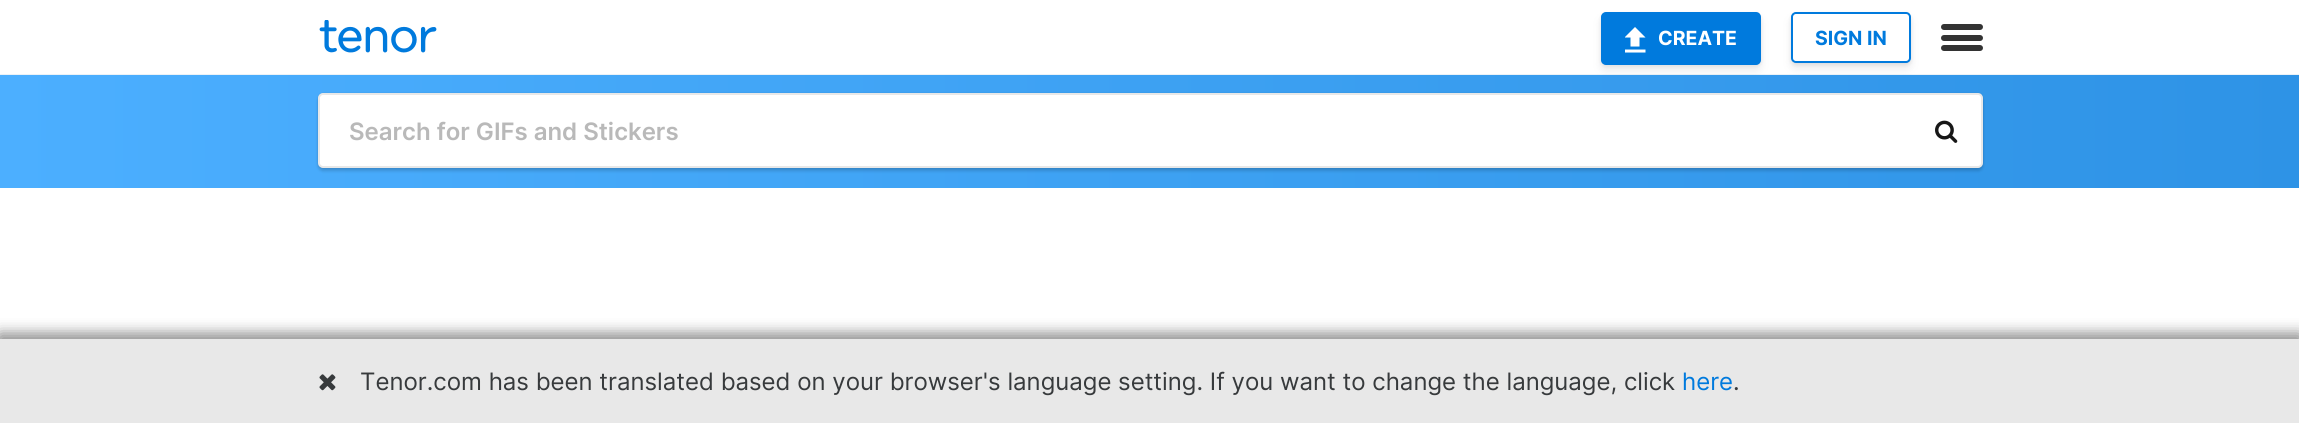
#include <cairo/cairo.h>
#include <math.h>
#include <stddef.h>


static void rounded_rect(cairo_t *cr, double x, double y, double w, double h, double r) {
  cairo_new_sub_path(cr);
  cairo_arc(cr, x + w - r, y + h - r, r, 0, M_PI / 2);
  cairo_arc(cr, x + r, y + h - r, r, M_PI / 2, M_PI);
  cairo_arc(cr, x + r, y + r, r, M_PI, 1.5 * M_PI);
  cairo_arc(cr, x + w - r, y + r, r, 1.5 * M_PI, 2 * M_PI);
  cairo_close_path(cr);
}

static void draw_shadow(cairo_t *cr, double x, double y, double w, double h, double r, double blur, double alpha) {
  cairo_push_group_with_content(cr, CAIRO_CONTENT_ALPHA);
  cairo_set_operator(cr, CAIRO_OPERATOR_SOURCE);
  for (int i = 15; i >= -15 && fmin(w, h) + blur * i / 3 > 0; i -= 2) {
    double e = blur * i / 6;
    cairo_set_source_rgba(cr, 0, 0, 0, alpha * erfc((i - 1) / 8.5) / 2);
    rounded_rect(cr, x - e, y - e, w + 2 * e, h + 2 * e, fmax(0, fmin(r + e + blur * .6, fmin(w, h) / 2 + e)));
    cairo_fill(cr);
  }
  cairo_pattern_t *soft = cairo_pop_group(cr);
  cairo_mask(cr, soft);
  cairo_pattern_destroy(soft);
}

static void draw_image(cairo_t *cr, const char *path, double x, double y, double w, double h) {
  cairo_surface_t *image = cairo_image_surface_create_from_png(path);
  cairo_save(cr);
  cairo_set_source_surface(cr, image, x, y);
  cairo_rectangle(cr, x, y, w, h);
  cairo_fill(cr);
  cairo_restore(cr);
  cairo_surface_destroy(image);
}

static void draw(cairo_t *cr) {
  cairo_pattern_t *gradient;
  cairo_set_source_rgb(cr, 1, 1, 1);
  cairo_paint(cr);
  cairo_set_source_rgb(cr, 235 / 255.0, 242 / 255.0, 247 / 255.0);
  cairo_rectangle(cr, 0, 74, 2299, 1);
  cairo_fill(cr);
  draw_image(cr, "images/1.png", 319, 20, 118, 33);
  cairo_set_source_rgb(cr, 83 / 255.0, 83 / 255.0, 92 / 255.0);
  draw_shadow(cr, 1601, 18, 160, 53, 5, 4.5, 0.11);
  cairo_set_source_rgb(cr, 0, 0, 0);
  draw_shadow(cr, 1601, 14, 160, 52, 5, 2, 0.08);
  cairo_set_source_rgb(cr, 0, 122 / 255.0, 221 / 255.0);
  rounded_rect(cr, 1602, 13, 158, 51, 4);
  cairo_fill_preserve(cr);
  cairo_stroke(cr);
  draw_image(cr, "images/2.png", 1625, 27, 21, 26);
  cairo_set_source_rgb(cr, 83 / 255.0, 83 / 255.0, 92 / 255.0);
  draw_shadow(cr, 1791, 18, 120, 51, 5, 4.5, 0.11);
  cairo_set_source_rgb(cr, 0, 0, 0);
  draw_shadow(cr, 1791, 14, 120, 51, 5, 2, 0.08);
  cairo_set_source_rgb(cr, 1, 1, 1);
  rounded_rect(cr, 1792, 13, 118, 49, 4);
  cairo_fill_preserve(cr);
  cairo_set_source_rgb(cr, 0, 122 / 255.0, 221 / 255.0);
  cairo_stroke(cr);
  cairo_set_source_rgb(cr, 51 / 255.0, 51 / 255.0, 51 / 255.0);
  rounded_rect(cr, 1941, 35, 42, 6, 3);
  cairo_fill(cr);
  rounded_rect(cr, 1941, 24, 42, 6, 3);
  cairo_fill(cr);
  rounded_rect(cr, 1941, 45, 42, 6, 3);
  cairo_fill(cr);
  gradient = cairo_pattern_create_linear(0, 131, 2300, 131);
  cairo_pattern_add_color_stop_rgba(gradient, 0, 76 / 255.0, 175 / 255.0, 1, 1);
  cairo_pattern_add_color_stop_rgba(gradient, 1, 46 / 255.0, 147 / 255.0, 230 / 255.0, 1);
  cairo_set_source(cr, gradient);
  cairo_pattern_destroy(gradient);
  cairo_rectangle(cr, 0, 75, 2299, 113);
  cairo_fill(cr);
  cairo_set_source_rgb(cr, 0, 0, 0);
  draw_shadow(cr, 318, 93, 1665, 75, 5, 1, 0.08);
  draw_shadow(cr, 318, 96, 1665, 75, 5, 1.5, 0.16);
  cairo_set_source_rgb(cr, 1, 1, 1);
  rounded_rect(cr, 319, 94, 1663, 73, 4);
  cairo_fill_preserve(cr);
  cairo_set_source_rgb(cr, 232 / 255.0, 232 / 255.0, 232 / 255.0);
  cairo_stroke(cr);
  draw_image(cr, "images/3.png", 1935, 120, 23, 23);
  cairo_set_source_rgb(cr, 153 / 255.0, 153 / 255.0, 153 / 255.0);
  draw_shadow(cr, 0, 336, 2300, 84, 0, 7.5, 1);
  draw_shadow(cr, 0, 336, 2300, 84, 0, 7.5, 1);
  cairo_set_source_rgb(cr, 232 / 255.0, 232 / 255.0, 232 / 255.0);
  cairo_rectangle(cr, 0, 339, 2299, 84);
  cairo_fill(cr);
  draw_image(cr, "images/4.png", 319, 374, 17, 17);
  cairo_select_font_face(cr, "Inter", CAIRO_FONT_SLANT_NORMAL, CAIRO_FONT_WEIGHT_BOLD);
  cairo_set_font_size(cr, 19.5);
  cairo_set_source_rgb(cr, 1, 1, 1);
  cairo_move_to(cr, 1658, 45);
  cairo_show_text(cr, "CREATE");
  cairo_set_source_rgb(cr, 0, 122 / 255.0, 221 / 255.0);
  cairo_move_to(cr, 1815, 45);
  cairo_show_text(cr, "SIGN IN");
  cairo_select_font_face(cr, "Inter SemiBold", CAIRO_FONT_SLANT_NORMAL, CAIRO_FONT_WEIGHT_NORMAL);
  cairo_set_font_size(cr, 24);
  cairo_set_source_rgb(cr, 185 / 255.0, 185 / 255.0, 185 / 255.0);
  cairo_move_to(cr, 349, 140);
  cairo_show_text(cr, "Search for GIFs and Stickers");
  cairo_select_font_face(cr, "Inter", CAIRO_FONT_SLANT_NORMAL, CAIRO_FONT_WEIGHT_NORMAL);
  cairo_set_source_rgb(cr, 55 / 255.0, 58 / 255.0, 60 / 255.0);
  cairo_move_to(cr, 360, 390);
  cairo_show_text(cr, "Tenor.com has been translated based on your browser's language setting. If you want to change the language, click");
  cairo_set_source_rgb(cr, 0, 122 / 255.0, 221 / 255.0);
  cairo_move_to(cr, 1682, 390);
  cairo_show_text(cr, "here");
  cairo_set_source_rgb(cr, 55 / 255.0, 58 / 255.0, 60 / 255.0);
  cairo_move_to(cr, 1733, 390);
  cairo_show_text(cr, ".");
}

int main(void) {
  cairo_surface_t *surface = cairo_image_surface_create(CAIRO_FORMAT_RGB24, 2299, 423);
  cairo_t *cr = cairo_create(surface);
  cairo_font_options_t *options = cairo_font_options_create();
  cairo_font_options_set_hint_metrics(options, CAIRO_HINT_METRICS_OFF);
  cairo_font_options_set_hint_style(options, CAIRO_HINT_STYLE_NONE);
  cairo_set_font_options(cr, options);
  cairo_set_miter_limit(cr, 4);
  draw(cr);
  cairo_surface_write_to_png(surface, "out.png");
  cairo_font_options_destroy(options);
  cairo_destroy(cr);
  cairo_surface_destroy(surface);
  return 0;
}
